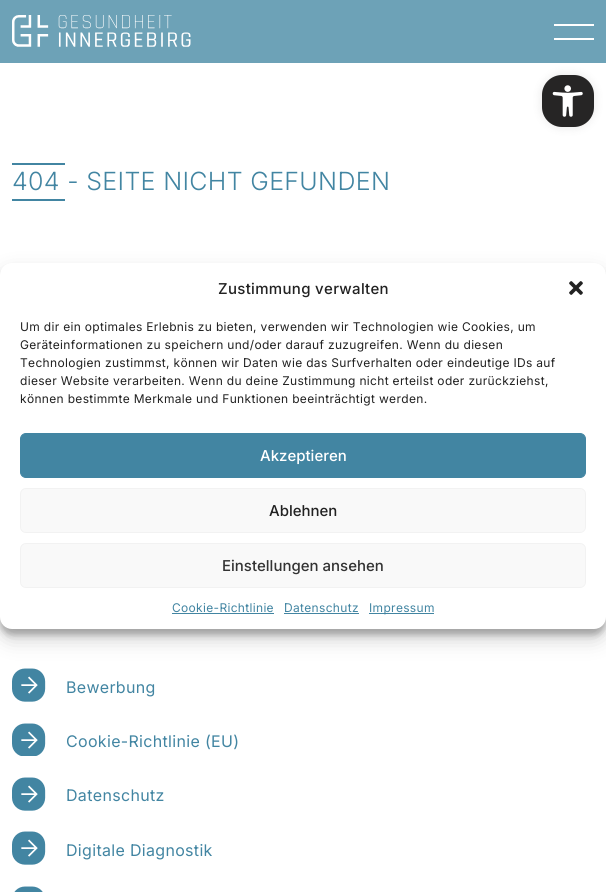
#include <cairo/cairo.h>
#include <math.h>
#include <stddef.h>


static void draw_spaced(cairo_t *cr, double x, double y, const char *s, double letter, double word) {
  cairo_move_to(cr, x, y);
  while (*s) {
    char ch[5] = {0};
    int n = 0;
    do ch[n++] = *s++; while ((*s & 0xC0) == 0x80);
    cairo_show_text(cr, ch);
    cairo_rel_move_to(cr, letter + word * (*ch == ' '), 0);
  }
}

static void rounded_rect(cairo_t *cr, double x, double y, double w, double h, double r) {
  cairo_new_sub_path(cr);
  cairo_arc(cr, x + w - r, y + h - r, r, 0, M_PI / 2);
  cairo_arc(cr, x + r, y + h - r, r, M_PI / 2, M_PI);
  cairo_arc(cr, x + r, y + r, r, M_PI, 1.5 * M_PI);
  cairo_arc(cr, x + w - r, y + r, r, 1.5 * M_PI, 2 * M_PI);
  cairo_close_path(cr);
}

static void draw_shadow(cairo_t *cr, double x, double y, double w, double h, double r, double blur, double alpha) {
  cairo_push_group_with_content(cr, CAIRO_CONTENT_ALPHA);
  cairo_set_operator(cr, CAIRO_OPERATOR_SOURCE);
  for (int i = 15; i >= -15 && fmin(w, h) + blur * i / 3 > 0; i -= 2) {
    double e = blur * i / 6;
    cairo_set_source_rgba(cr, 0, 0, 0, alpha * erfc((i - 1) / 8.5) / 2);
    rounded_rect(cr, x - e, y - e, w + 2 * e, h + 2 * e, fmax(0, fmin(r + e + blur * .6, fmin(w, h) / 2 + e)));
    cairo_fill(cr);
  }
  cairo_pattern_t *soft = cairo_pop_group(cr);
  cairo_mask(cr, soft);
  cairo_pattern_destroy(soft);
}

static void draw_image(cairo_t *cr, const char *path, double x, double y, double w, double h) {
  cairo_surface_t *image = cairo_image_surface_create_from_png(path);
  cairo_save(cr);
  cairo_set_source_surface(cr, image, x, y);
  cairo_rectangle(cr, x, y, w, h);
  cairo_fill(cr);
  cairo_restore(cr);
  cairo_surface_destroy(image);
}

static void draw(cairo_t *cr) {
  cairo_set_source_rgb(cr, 1, 1, 1);
  cairo_paint(cr);
  cairo_set_source_rgb(cr, 0, 0, 0);
  draw_shadow(cr, 542, 75, 52, 52, 20, 5, 0.1);
  cairo_set_source_rgb(cr, 38 / 255.0, 37 / 255.0, 37 / 255.0);
  rounded_rect(cr, 542, 75, 52, 52, 20);
  cairo_fill(cr);
  draw_image(cr, "images/1.png", 552, 85, 31, 32);
  cairo_set_source_rgb(cr, 109 / 255.0, 162 / 255.0, 183 / 255.0);
  cairo_rectangle(cr, 0, 0, 606, 63);
  cairo_fill(cr);
  draw_image(cr, "images/2.png", 12, 15, 179, 32);
  cairo_set_source_rgb(cr, 1, 1, 1);
  cairo_rectangle(cr, 554, 24, 40, 2);
  cairo_fill(cr);
  cairo_rectangle(cr, 554, 38, 40, 2);
  cairo_fill(cr);
  cairo_set_source_rgb(cr, 66 / 255.0, 133 / 255.0, 162 / 255.0);
  cairo_rectangle(cr, 12, 163, 53, 2);
  cairo_fill(cr);
  cairo_rectangle(cr, 12, 199, 53, 2);
  cairo_fill(cr);
  draw_image(cr, "images/3.png", 12, 668, 34, 34);
  draw_image(cr, "images/4.png", 12, 723, 34, 33);
  draw_image(cr, "images/3.png", 12, 777, 34, 34);
  draw_image(cr, "images/3.png", 12, 831, 34, 34);
  draw_image(cr, "images/5.png", 14, 886, 29, 6);
  cairo_set_source_rgb(cr, 0, 0, 0);
  draw_shadow(cr, 0, 269, 606, 366, 12, 3, 0.23);
  draw_shadow(cr, 0, 273, 606, 366, 12, 10, 0.19);
  cairo_set_source_rgb(cr, 1, 1, 1);
  rounded_rect(cr, 0, 263, 606, 366, 12);
  cairo_fill(cr);
  draw_image(cr, "images/6.png", 569, 281, 14, 14);
  cairo_set_source_rgb(cr, 66 / 255.0, 133 / 255.0, 162 / 255.0);
  rounded_rect(cr, 20.5, 433.5, 565, 44, 5.5);
  cairo_fill_preserve(cr);
  cairo_set_line_width(cr, 1);
  cairo_stroke(cr);
  cairo_set_source_rgb(cr, 249 / 255.0, 249 / 255.0, 249 / 255.0);
  rounded_rect(cr, 20.5, 488.5, 565, 44, 5.5);
  cairo_fill_preserve(cr);
  cairo_set_source_rgb(cr, 242 / 255.0, 242 / 255.0, 242 / 255.0);
  cairo_stroke(cr);
  cairo_set_source_rgb(cr, 249 / 255.0, 249 / 255.0, 249 / 255.0);
  rounded_rect(cr, 20.5, 543.5, 565, 44, 5.5);
  cairo_fill_preserve(cr);
  cairo_set_source_rgb(cr, 242 / 255.0, 242 / 255.0, 242 / 255.0);
  cairo_stroke(cr);
  cairo_set_source_rgb(cr, 66 / 255.0, 133 / 255.0, 162 / 255.0);
  cairo_rectangle(cr, 172, 613, 102, 1);
  cairo_fill(cr);
  cairo_rectangle(cr, 284, 613, 75, 1);
  cairo_fill(cr);
  cairo_rectangle(cr, 369, 613, 65, 1);
  cairo_fill(cr);
  cairo_select_font_face(cr, "Inter Light", CAIRO_FONT_SLANT_NORMAL, CAIRO_FONT_WEIGHT_NORMAL);
  cairo_set_font_size(cr, 25);
  draw_spaced(cr, 12, 190, "404 - SEITE NICHT GEFUNDEN", 0.32, 0);
  cairo_select_font_face(cr, "Inter", CAIRO_FONT_SLANT_NORMAL, CAIRO_FONT_WEIGHT_NORMAL);
  cairo_set_font_size(cr, 16);
  draw_spaced(cr, 66, 693, "Bewerbung", 0.32, 0);
  draw_spaced(cr, 66, 747, "Cookie-Richtlinie (EU)", 0.32, 0);
  draw_spaced(cr, 66, 801, "Datenschutz", 0.32, 0);
  draw_spaced(cr, 66, 856, "Digitale Diagnostik", 0.32, 0);
  cairo_select_font_face(cr, "Inter Medium", CAIRO_FONT_SLANT_NORMAL, CAIRO_FONT_WEIGHT_NORMAL);
  cairo_set_font_size(cr, 15);
  cairo_set_source_rgb(cr, 34 / 255.0, 34 / 255.0, 34 / 255.0);
  draw_spaced(cr, 218, 294, "Zustimmung verwalten", 0.32, 0);
  cairo_select_font_face(cr, "Inter", CAIRO_FONT_SLANT_NORMAL, CAIRO_FONT_WEIGHT_NORMAL);
  cairo_set_font_size(cr, 12);
  draw_spaced(cr, 20, 331, "Um dir ein optimales Erlebnis zu bieten, verwenden wir Technologien wie Cookies, um", 0.32, 0);
  draw_spaced(cr, 20, 349, "Geräteinformationen zu speichern und/oder darauf zuzugreifen. Wenn du diesen", 0.32, 0);
  draw_spaced(cr, 20, 367, "Technologien zustimmst, können wir Daten wie das Surfverhalten oder eindeutige IDs auf", 0.32, 0);
  draw_spaced(cr, 20, 385, "dieser Website verarbeiten. Wenn du deine Zustimmung nicht erteilst oder zurückziehst,", 0.32, 0);
  draw_spaced(cr, 20, 403, "können bestimmte Merkmale und Funktionen beeinträchtigt werden.", 0.32, 0);
  cairo_select_font_face(cr, "Inter Medium", CAIRO_FONT_SLANT_NORMAL, CAIRO_FONT_WEIGHT_NORMAL);
  cairo_set_font_size(cr, 15);
  cairo_set_source_rgb(cr, 1, 1, 1);
  cairo_move_to(cr, 260, 461);
  cairo_show_text(cr, "Akzeptieren");
  cairo_set_source_rgb(cr, 34 / 255.0, 34 / 255.0, 34 / 255.0);
  cairo_move_to(cr, 269, 516);
  cairo_show_text(cr, "Ablehnen");
  cairo_set_source_rgb(cr, 51 / 255.0, 51 / 255.0, 51 / 255.0);
  cairo_move_to(cr, 222, 571);
  cairo_show_text(cr, "Einstellungen ansehen");
  cairo_select_font_face(cr, "Inter", CAIRO_FONT_SLANT_NORMAL, CAIRO_FONT_WEIGHT_NORMAL);
  cairo_set_font_size(cr, 12);
  cairo_set_source_rgb(cr, 66 / 255.0, 133 / 255.0, 162 / 255.0);
  draw_spaced(cr, 172, 612, "Cookie-Richtlinie", 0.32, 0);
  draw_spaced(cr, 284, 612, "Datenschutz", 0.32, 0);
  draw_spaced(cr, 369, 612, "Impressum", 0.32, 0);
}

int main(void) {
  cairo_surface_t *surface = cairo_image_surface_create(CAIRO_FORMAT_RGB24, 606, 892);
  cairo_t *cr = cairo_create(surface);
  cairo_font_options_t *options = cairo_font_options_create();
  cairo_font_options_set_hint_metrics(options, CAIRO_HINT_METRICS_OFF);
  cairo_font_options_set_hint_style(options, CAIRO_HINT_STYLE_NONE);
  cairo_set_font_options(cr, options);
  cairo_set_miter_limit(cr, 4);
  draw(cr);
  cairo_surface_write_to_png(surface, "out.png");
  cairo_font_options_destroy(options);
  cairo_destroy(cr);
  cairo_surface_destroy(surface);
  return 0;
}
